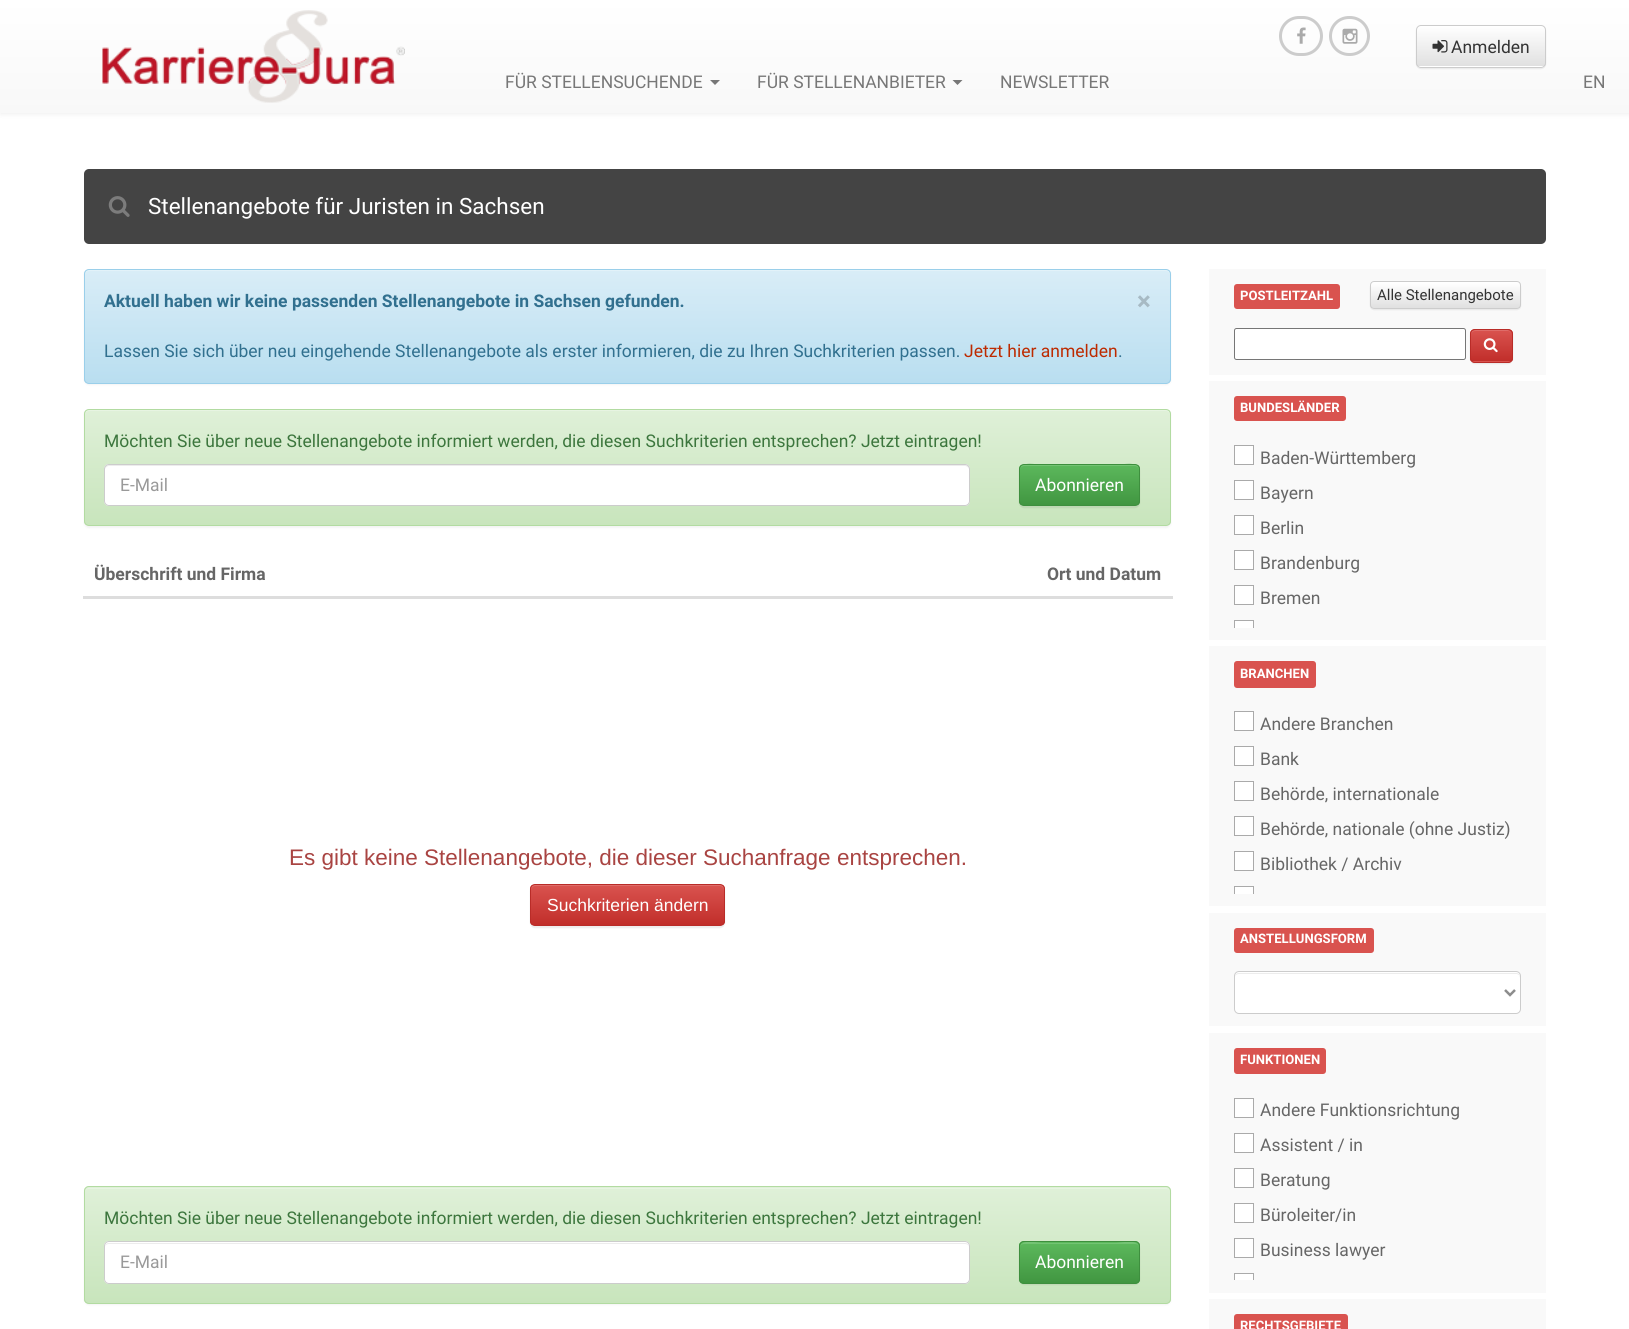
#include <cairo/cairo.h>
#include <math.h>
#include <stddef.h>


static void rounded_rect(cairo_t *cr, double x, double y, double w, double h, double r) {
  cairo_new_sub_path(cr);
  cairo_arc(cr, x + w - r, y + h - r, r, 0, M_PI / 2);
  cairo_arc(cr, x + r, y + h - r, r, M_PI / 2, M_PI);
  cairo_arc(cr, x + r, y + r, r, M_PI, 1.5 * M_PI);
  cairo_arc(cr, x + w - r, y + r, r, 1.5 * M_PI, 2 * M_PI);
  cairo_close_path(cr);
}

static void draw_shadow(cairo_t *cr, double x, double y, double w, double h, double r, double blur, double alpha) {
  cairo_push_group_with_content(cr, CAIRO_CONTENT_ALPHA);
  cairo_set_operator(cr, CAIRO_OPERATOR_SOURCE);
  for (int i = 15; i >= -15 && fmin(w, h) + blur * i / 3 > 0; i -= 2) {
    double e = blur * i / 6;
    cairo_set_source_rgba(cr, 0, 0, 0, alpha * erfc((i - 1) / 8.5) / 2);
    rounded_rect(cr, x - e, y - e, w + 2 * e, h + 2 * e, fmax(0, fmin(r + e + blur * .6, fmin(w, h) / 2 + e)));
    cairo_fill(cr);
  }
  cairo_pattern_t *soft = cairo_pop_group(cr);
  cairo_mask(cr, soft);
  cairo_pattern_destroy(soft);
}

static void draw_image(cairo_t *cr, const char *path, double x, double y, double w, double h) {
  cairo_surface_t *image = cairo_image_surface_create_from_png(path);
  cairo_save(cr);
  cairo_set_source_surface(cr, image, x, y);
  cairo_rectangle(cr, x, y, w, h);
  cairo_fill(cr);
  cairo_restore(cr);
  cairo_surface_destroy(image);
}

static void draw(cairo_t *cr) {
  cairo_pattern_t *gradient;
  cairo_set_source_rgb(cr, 1, 1, 1);
  cairo_paint(cr);
  cairo_set_source_rgb(cr, 0, 0, 0);
  draw_shadow(cr, 0, 1, 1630, 113, 0, 3, 0.07);
  gradient = cairo_pattern_create_linear(815, 0, 815, 113);
  cairo_pattern_add_color_stop_rgba(gradient, 0, 1, 1, 1, 1);
  cairo_pattern_add_color_stop_rgba(gradient, 1, 248 / 255.0, 248 / 255.0, 248 / 255.0, 1);
  cairo_set_source(cr, gradient);
  cairo_pattern_destroy(gradient);
  cairo_rectangle(cr, 0, 0, 1629, 113);
  cairo_fill(cr);
  draw_image(cr, "images/1.png", 102, 10, 303, 93);
  rounded_rect(cr, 1280.5, 17.5, 41, 37, 18.5);
  cairo_set_source_rgb(cr, 204 / 255.0, 204 / 255.0, 204 / 255.0);
  cairo_set_line_width(cr, 3);
  cairo_stroke(cr);
  draw_image(cr, "images/2.png", 1297, 27, 9, 17);
  rounded_rect(cr, 1330.5, 17.5, 38, 37, 18.5);
  cairo_stroke(cr);
  draw_image(cr, "images/3.png", 1342, 28, 16, 16);
  cairo_set_source_rgb(cr, 0, 0, 0);
  draw_shadow(cr, 1416, 26, 130, 43, 5, 0.5, 0.07);
  cairo_set_source_rgb(cr, 1, 1, 1);
  rounded_rect(cr, 1416, 25, 130, 43, 5);
  cairo_fill(cr);
  cairo_save(cr);
  rounded_rect(cr, 1416, 25, 130, 43, 5);
  cairo_clip(cr);
  gradient = cairo_pattern_create_linear(1481, 26, 1481, 66);
  cairo_pattern_add_color_stop_rgba(gradient, 0, 1, 1, 1, 1);
  cairo_pattern_add_color_stop_rgba(gradient, 1, 224 / 255.0, 224 / 255.0, 224 / 255.0, 1);
  cairo_set_source(cr, gradient);
  cairo_pattern_destroy(gradient);
  cairo_rectangle(cr, 1416, 26, 130, 40);
  cairo_fill(cr);
  cairo_restore(cr);
  rounded_rect(cr, 1416.5, 25.5, 129, 42, 4.5);
  cairo_set_source_rgb(cr, 204 / 255.0, 204 / 255.0, 204 / 255.0);
  cairo_set_line_width(cr, 1);
  cairo_stroke(cr);
  draw_image(cr, "images/4.png", 1432, 40, 16, 13);
  cairo_set_source_rgb(cr, 119 / 255.0, 119 / 255.0, 119 / 255.0);
  cairo_new_path(cr);
  cairo_move_to(cr, 710, 80);
  cairo_line_to(cr, 720, 80);
  cairo_line_to(cr, 715, 85);
  cairo_close_path(cr);
  cairo_fill(cr);
  cairo_new_path(cr);
  cairo_move_to(cr, 952.5, 80);
  cairo_line_to(cr, 962.5, 80);
  cairo_line_to(cr, 957.5, 85);
  cairo_close_path(cr);
  cairo_fill(cr);
  cairo_set_source_rgb(cr, 68 / 255.0, 68 / 255.0, 68 / 255.0);
  rounded_rect(cr, 84, 169, 1462, 75, 5);
  cairo_fill(cr);
  draw_image(cr, "images/5.png", 108, 196, 22, 21);
  cairo_set_source_rgb(cr, 0, 0, 0);
  draw_shadow(cr, 84, 270, 1087, 115, 5, 1, 0.05);
  cairo_save(cr);
  rounded_rect(cr, 84, 269, 1087, 115, 5);
  cairo_clip(cr);
  gradient = cairo_pattern_create_linear(628, 270, 628, 383);
  cairo_pattern_add_color_stop_rgba(gradient, 0, 217 / 255.0, 237 / 255.0, 247 / 255.0, 1);
  cairo_pattern_add_color_stop_rgba(gradient, 1, 185 / 255.0, 222 / 255.0, 240 / 255.0, 1);
  cairo_set_source(cr, gradient);
  cairo_pattern_destroy(gradient);
  cairo_rectangle(cr, 84, 270, 1087, 113);
  cairo_fill(cr);
  cairo_restore(cr);
  cairo_set_source_rgb(cr, 226 / 255.0, 242 / 255.0, 249 / 255.0);
  cairo_new_path(cr);
  cairo_move_to(cr, 89, 271);
  cairo_line_to(cr, 1166, 271);
  cairo_curve_to(cr, 1168, 271, 1170, 273, 1170, 275);
  cairo_curve_to(cr, 1170, 272, 1169, 270, 1166, 270);
  cairo_line_to(cr, 89, 270);
  cairo_curve_to(cr, 86, 270, 85, 272, 85, 275);
  cairo_curve_to(cr, 85, 273, 87, 271, 89, 271);
  cairo_close_path(cr);
  cairo_fill(cr);
  rounded_rect(cr, 84.5, 269.5, 1086, 114, 4.5);
  cairo_set_source_rgb(cr, 154 / 255.0, 207 / 255.0, 234 / 255.0);
  cairo_stroke(cr);
  cairo_set_source_rgb(cr, 0, 0, 0);
  draw_shadow(cr, 84, 410, 1087, 118, 5, 1, 0.05);
  cairo_save(cr);
  rounded_rect(cr, 84, 409, 1087, 117, 5);
  cairo_clip(cr);
  gradient = cairo_pattern_create_linear(628, 410, 628, 525);
  cairo_pattern_add_color_stop_rgba(gradient, 0, 223 / 255.0, 240 / 255.0, 216 / 255.0, 1);
  cairo_pattern_add_color_stop_rgba(gradient, 1, 200 / 255.0, 229 / 255.0, 188 / 255.0, 1);
  cairo_set_source(cr, gradient);
  cairo_pattern_destroy(gradient);
  cairo_rectangle(cr, 84, 410, 1087, 115);
  cairo_fill(cr);
  cairo_restore(cr);
  cairo_set_source_rgb(cr, 231 / 255.0, 244 / 255.0, 226 / 255.0);
  cairo_new_path(cr);
  cairo_move_to(cr, 89, 411);
  cairo_line_to(cr, 1166, 411);
  cairo_curve_to(cr, 1168, 411, 1170, 413, 1170, 415);
  cairo_curve_to(cr, 1170, 412, 1169, 410, 1166, 410);
  cairo_line_to(cr, 89, 410);
  cairo_curve_to(cr, 86, 410, 85, 412, 85, 415);
  cairo_curve_to(cr, 85, 413, 87, 411, 89, 411);
  cairo_close_path(cr);
  cairo_fill(cr);
  rounded_rect(cr, 84.5, 409.5, 1086, 116, 4.5);
  cairo_set_source_rgb(cr, 178 / 255.0, 219 / 255.0, 161 / 255.0);
  cairo_stroke(cr);
  cairo_set_source_rgb(cr, 1, 1, 1);
  rounded_rect(cr, 104, 464, 866, 42, 5);
  cairo_fill(cr);
  cairo_set_source_rgb(cr, 236 / 255.0, 236 / 255.0, 236 / 255.0);
  cairo_new_path(cr);
  cairo_move_to(cr, 109, 466);
  cairo_line_to(cr, 965, 466);
  cairo_curve_to(cr, 967, 466, 969, 468, 969, 470);
  cairo_curve_to(cr, 969, 467, 968, 465, 965, 465);
  cairo_line_to(cr, 109, 465);
  cairo_curve_to(cr, 106, 465, 105, 467, 105, 470);
  cairo_curve_to(cr, 105, 468, 107, 466, 109, 466);
  cairo_close_path(cr);
  cairo_fill(cr);
  rounded_rect(cr, 104.5, 464.5, 865, 41, 4.5);
  cairo_set_source_rgb(cr, 204 / 255.0, 204 / 255.0, 204 / 255.0);
  cairo_stroke(cr);
  cairo_set_source_rgb(cr, 0, 0, 0);
  draw_shadow(cr, 1019, 465, 121, 43, 5, 0.5, 0.07);
  cairo_save(cr);
  rounded_rect(cr, 1019, 464, 121, 42, 5);
  cairo_clip(cr);
  gradient = cairo_pattern_create_linear(1079, 465, 1079, 505);
  cairo_pattern_add_color_stop_rgba(gradient, 0, 92 / 255.0, 184 / 255.0, 92 / 255.0, 1);
  cairo_pattern_add_color_stop_rgba(gradient, 1, 65 / 255.0, 150 / 255.0, 65 / 255.0, 1);
  cairo_set_source(cr, gradient);
  cairo_pattern_destroy(gradient);
  cairo_rectangle(cr, 1019, 465, 121, 40);
  cairo_fill(cr);
  cairo_restore(cr);
  cairo_set_source_rgb(cr, 116 / 255.0, 195 / 255.0, 116 / 255.0);
  cairo_new_path(cr);
  cairo_move_to(cr, 1024, 466);
  cairo_line_to(cr, 1135, 466);
  cairo_curve_to(cr, 1137, 466, 1139, 468, 1139, 470);
  cairo_curve_to(cr, 1139, 460, 1120, 465, 1116, 465);
  cairo_line_to(cr, 1042, 465);
  cairo_curve_to(cr, 1039, 465, 1020, 460, 1020, 470);
  cairo_curve_to(cr, 1020, 468, 1022, 466, 1024, 466);
  cairo_close_path(cr);
  cairo_fill(cr);
  rounded_rect(cr, 1019.5, 464.5, 120, 41, 4.5);
  cairo_set_source_rgb(cr, 62 / 255.0, 143 / 255.0, 62 / 255.0);
  cairo_stroke(cr);
  cairo_set_source_rgb(cr, 221 / 255.0, 221 / 255.0, 221 / 255.0);
  cairo_rectangle(cr, 83, 596, 1090, 3);
  cairo_fill(cr);
  cairo_set_source_rgb(cr, 0, 0, 0);
  draw_shadow(cr, 530, 885, 195, 43, 5, 0.5, 0.07);
  cairo_save(cr);
  rounded_rect(cr, 530, 884, 195, 42, 5);
  cairo_clip(cr);
  gradient = cairo_pattern_create_linear(628, 885, 628, 925);
  cairo_pattern_add_color_stop_rgba(gradient, 0, 217 / 255.0, 83 / 255.0, 79 / 255.0, 1);
  cairo_pattern_add_color_stop_rgba(gradient, 1, 193 / 255.0, 46 / 255.0, 42 / 255.0, 1);
  cairo_set_source(cr, gradient);
  cairo_pattern_destroy(gradient);
  cairo_rectangle(cr, 530, 885, 195, 40);
  cairo_fill(cr);
  cairo_restore(cr);
  cairo_set_source_rgb(cr, 223 / 255.0, 109 / 255.0, 105 / 255.0);
  cairo_new_path(cr);
  cairo_move_to(cr, 535, 886);
  cairo_line_to(cr, 720, 886);
  cairo_curve_to(cr, 722, 886, 724, 888, 724, 890);
  cairo_line_to(cr, 724, 889);
  cairo_curve_to(cr, 724, 887, 722, 885, 720, 885);
  cairo_line_to(cr, 535, 885);
  cairo_curve_to(cr, 533, 885, 531, 887, 531, 889);
  cairo_line_to(cr, 531, 890);
  cairo_curve_to(cr, 531, 888, 533, 886, 535, 886);
  cairo_close_path(cr);
  cairo_fill(cr);
  rounded_rect(cr, 530.5, 884.5, 194, 41, 4.5);
  cairo_set_source_rgb(cr, 185 / 255.0, 44 / 255.0, 40 / 255.0);
  cairo_stroke(cr);
  cairo_set_source_rgb(cr, 0, 0, 0);
  draw_shadow(cr, 84, 1188, 1087, 117, 5, 1, 0.05);
  cairo_set_source_rgb(cr, 223 / 255.0, 240 / 255.0, 216 / 255.0);
  rounded_rect(cr, 84, 1186, 1087, 118, 5);
  cairo_fill(cr);
  cairo_save(cr);
  rounded_rect(cr, 84, 1186, 1087, 118, 5);
  cairo_clip(cr);
  gradient = cairo_pattern_create_linear(628, 1188, 628, 1303);
  cairo_pattern_add_color_stop_rgba(gradient, 0, 223 / 255.0, 240 / 255.0, 216 / 255.0, 1);
  cairo_pattern_add_color_stop_rgba(gradient, 1, 200 / 255.0, 229 / 255.0, 188 / 255.0, 1);
  cairo_set_source(cr, gradient);
  cairo_pattern_destroy(gradient);
  cairo_rectangle(cr, 84, 1188, 1087, 115);
  cairo_fill(cr);
  cairo_restore(cr);
  cairo_set_source_rgb(cr, 231 / 255.0, 244 / 255.0, 226 / 255.0);
  cairo_new_path(cr);
  cairo_move_to(cr, 89, 1189);
  cairo_line_to(cr, 1166, 1189);
  cairo_curve_to(cr, 1168, 1189, 1170, 1190, 1170, 1192);
  cairo_curve_to(cr, 1170, 1190, 1168, 1188, 1166, 1188);
  cairo_line_to(cr, 89, 1188);
  cairo_curve_to(cr, 87, 1188, 85, 1190, 85, 1192);
  cairo_curve_to(cr, 85, 1190, 87, 1189, 89, 1189);
  cairo_close_path(cr);
  cairo_fill(cr);
  rounded_rect(cr, 84.5, 1186.5, 1086, 117, 4.5);
  cairo_set_source_rgb(cr, 178 / 255.0, 219 / 255.0, 161 / 255.0);
  cairo_stroke(cr);
  cairo_set_source_rgb(cr, 1, 1, 1);
  rounded_rect(cr, 104, 1241, 866, 43, 5);
  cairo_fill(cr);
  cairo_set_source_rgb(cr, 236 / 255.0, 236 / 255.0, 236 / 255.0);
  cairo_new_path(cr);
  cairo_move_to(cr, 109, 1244);
  cairo_line_to(cr, 965, 1244);
  cairo_curve_to(cr, 967, 1244, 969, 1245, 969, 1248);
  cairo_curve_to(cr, 969, 1245, 968, 1243, 965, 1243);
  cairo_line_to(cr, 109, 1243);
  cairo_curve_to(cr, 106, 1243, 105, 1245, 105, 1248);
  cairo_curve_to(cr, 105, 1245, 107, 1244, 109, 1244);
  cairo_close_path(cr);
  cairo_fill(cr);
  rounded_rect(cr, 104.5, 1241.5, 865, 42, 4.5);
  cairo_set_source_rgb(cr, 204 / 255.0, 204 / 255.0, 204 / 255.0);
  cairo_stroke(cr);
  cairo_set_source_rgb(cr, 0, 0, 0);
  draw_shadow(cr, 1019, 1243, 121, 42, 5, 0.5, 0.07);
  cairo_set_source_rgb(cr, 92 / 255.0, 184 / 255.0, 92 / 255.0);
  rounded_rect(cr, 1019, 1241, 121, 43, 5);
  cairo_fill(cr);
  cairo_save(cr);
  rounded_rect(cr, 1019, 1241, 121, 43, 5);
  cairo_clip(cr);
  gradient = cairo_pattern_create_linear(1079, 1243, 1079, 1283);
  cairo_pattern_add_color_stop_rgba(gradient, 0, 92 / 255.0, 184 / 255.0, 92 / 255.0, 1);
  cairo_pattern_add_color_stop_rgba(gradient, 1, 65 / 255.0, 150 / 255.0, 65 / 255.0, 1);
  cairo_set_source(cr, gradient);
  cairo_pattern_destroy(gradient);
  cairo_rectangle(cr, 1019, 1243, 121, 40);
  cairo_fill(cr);
  cairo_restore(cr);
  cairo_set_source_rgb(cr, 116 / 255.0, 195 / 255.0, 116 / 255.0);
  cairo_new_path(cr);
  cairo_move_to(cr, 1024, 1244);
  cairo_line_to(cr, 1135, 1244);
  cairo_curve_to(cr, 1137, 1244, 1139, 1245, 1139, 1248);
  cairo_curve_to(cr, 1139, 1238, 1120, 1243, 1116, 1243);
  cairo_line_to(cr, 1042, 1243);
  cairo_curve_to(cr, 1039, 1243, 1020, 1238, 1020, 1248);
  cairo_curve_to(cr, 1020, 1245, 1022, 1244, 1024, 1244);
  cairo_close_path(cr);
  cairo_fill(cr);
  rounded_rect(cr, 1019.5, 1241.5, 120, 42, 4.5);
  cairo_set_source_rgb(cr, 62 / 255.0, 143 / 255.0, 62 / 255.0);
  cairo_stroke(cr);
  cairo_set_source_rgb(cr, 249 / 255.0, 249 / 255.0, 249 / 255.0);
  cairo_rectangle(cr, 1209, 269, 337, 106);
  cairo_fill(cr);
  cairo_set_source_rgb(cr, 217 / 255.0, 83 / 255.0, 79 / 255.0);
  rounded_rect(cr, 1234, 284, 106, 25, 3);
  cairo_fill(cr);
  cairo_set_source_rgb(cr, 0, 0, 0);
  draw_shadow(cr, 1370, 283, 151, 27, 4, 0.5, 0.07);
  cairo_set_source_rgb(cr, 1, 1, 1);
  rounded_rect(cr, 1370, 281, 151, 28, 4);
  cairo_fill(cr);
  cairo_save(cr);
  rounded_rect(cr, 1370, 281, 151, 28, 4);
  cairo_clip(cr);
  gradient = cairo_pattern_create_linear(1446, 283, 1446, 308);
  cairo_pattern_add_color_stop_rgba(gradient, 0, 1, 1, 1, 1);
  cairo_pattern_add_color_stop_rgba(gradient, 1, 224 / 255.0, 224 / 255.0, 224 / 255.0, 1);
  cairo_set_source(cr, gradient);
  cairo_pattern_destroy(gradient);
  cairo_rectangle(cr, 1370, 283, 151, 25);
  cairo_fill(cr);
  cairo_restore(cr);
  rounded_rect(cr, 1370.5, 281.5, 150, 27, 3.5);
  cairo_set_source_rgb(cr, 204 / 255.0, 204 / 255.0, 204 / 255.0);
  cairo_stroke(cr);
  cairo_set_source_rgb(cr, 1, 1, 1);
  rounded_rect(cr, 1234.5, 328.5, 231, 31, 2);
  cairo_fill_preserve(cr);
  cairo_set_source_rgb(cr, 118 / 255.0, 118 / 255.0, 118 / 255.0);
  cairo_stroke(cr);
  cairo_set_source_rgb(cr, 0, 0, 0);
  draw_shadow(cr, 1470, 330, 43, 34, 5, 0.5, 0.07);
  cairo_set_source_rgb(cr, 217 / 255.0, 83 / 255.0, 79 / 255.0);
  rounded_rect(cr, 1470, 329, 43, 34, 5);
  cairo_fill(cr);
  cairo_save(cr);
  rounded_rect(cr, 1470, 329, 43, 34, 5);
  cairo_clip(cr);
  gradient = cairo_pattern_create_linear(1491, 330, 1491, 361);
  cairo_pattern_add_color_stop_rgba(gradient, 0, 217 / 255.0, 83 / 255.0, 79 / 255.0, 1);
  cairo_pattern_add_color_stop_rgba(gradient, 1, 193 / 255.0, 46 / 255.0, 42 / 255.0, 1);
  cairo_set_source(cr, gradient);
  cairo_pattern_destroy(gradient);
  cairo_rectangle(cr, 1470, 330, 43, 31);
  cairo_fill(cr);
  cairo_restore(cr);
  cairo_set_source_rgb(cr, 223 / 255.0, 108 / 255.0, 105 / 255.0);
  cairo_new_path(cr);
  cairo_move_to(cr, 1475, 331);
  cairo_line_to(cr, 1508, 331);
  cairo_curve_to(cr, 1510, 331, 1511, 333, 1511, 335);
  cairo_curve_to(cr, 1511, 329, 1506, 330, 1502, 330);
  cairo_line_to(cr, 1480, 330);
  cairo_curve_to(cr, 1476, 330, 1471, 329, 1471, 335);
  cairo_curve_to(cr, 1471, 333, 1473, 331, 1475, 331);
  cairo_close_path(cr);
  cairo_fill(cr);
  rounded_rect(cr, 1470.5, 329.5, 42, 33, 4.5);
  cairo_set_source_rgb(cr, 185 / 255.0, 44 / 255.0, 40 / 255.0);
  cairo_stroke(cr);
  draw_image(cr, "images/6.png", 1483, 338, 15, 15);
  cairo_set_source_rgb(cr, 249 / 255.0, 249 / 255.0, 249 / 255.0);
  cairo_rectangle(cr, 1209, 381, 337, 259);
  cairo_fill(cr);
  cairo_set_source_rgb(cr, 217 / 255.0, 83 / 255.0, 79 / 255.0);
  rounded_rect(cr, 1234, 396, 112, 25, 3);
  cairo_fill(cr);
  cairo_set_source_rgb(cr, 1, 1, 1);
  cairo_rectangle(cr, 1234.5, 445.5, 19, 19);
  cairo_fill_preserve(cr);
  cairo_set_source_rgb(cr, 170 / 255.0, 170 / 255.0, 170 / 255.0);
  cairo_stroke(cr);
  cairo_set_source_rgb(cr, 1, 1, 1);
  cairo_rectangle(cr, 1234.5, 480.5, 19, 19);
  cairo_fill_preserve(cr);
  cairo_set_source_rgb(cr, 170 / 255.0, 170 / 255.0, 170 / 255.0);
  cairo_stroke(cr);
  cairo_set_source_rgb(cr, 1, 1, 1);
  cairo_rectangle(cr, 1234.5, 515.5, 19, 19);
  cairo_fill_preserve(cr);
  cairo_set_source_rgb(cr, 170 / 255.0, 170 / 255.0, 170 / 255.0);
  cairo_stroke(cr);
  cairo_set_source_rgb(cr, 1, 1, 1);
  cairo_rectangle(cr, 1234.5, 550.5, 19, 19);
  cairo_fill_preserve(cr);
  cairo_set_source_rgb(cr, 170 / 255.0, 170 / 255.0, 170 / 255.0);
  cairo_stroke(cr);
  cairo_set_source_rgb(cr, 1, 1, 1);
  cairo_rectangle(cr, 1234.5, 585.5, 19, 19);
  cairo_fill_preserve(cr);
  cairo_set_source_rgb(cr, 170 / 255.0, 170 / 255.0, 170 / 255.0);
  cairo_stroke(cr);
  cairo_set_source_rgb(cr, 1, 1, 1);
  cairo_rectangle(cr, 1234, 621, 20, 7);
  cairo_fill(cr);
  cairo_save(cr);
  cairo_rectangle(cr, 1234, 440, 287, 188);
  cairo_clip(cr);
  cairo_rectangle(cr, 1234.5, 620.5, 19, 19);
  cairo_set_source_rgb(cr, 170 / 255.0, 170 / 255.0, 170 / 255.0);
  cairo_stroke(cr);
  cairo_restore(cr);
  cairo_set_source_rgb(cr, 249 / 255.0, 249 / 255.0, 249 / 255.0);
  cairo_rectangle(cr, 1209, 646, 337, 260);
  cairo_fill(cr);
  cairo_set_source_rgb(cr, 217 / 255.0, 83 / 255.0, 79 / 255.0);
  rounded_rect(cr, 1234, 661, 82, 27, 3);
  cairo_fill(cr);
  cairo_set_source_rgb(cr, 1, 1, 1);
  cairo_rectangle(cr, 1234.5, 711.5, 19, 19);
  cairo_fill_preserve(cr);
  cairo_set_source_rgb(cr, 170 / 255.0, 170 / 255.0, 170 / 255.0);
  cairo_stroke(cr);
  cairo_set_source_rgb(cr, 1, 1, 1);
  cairo_rectangle(cr, 1234.5, 746.5, 19, 19);
  cairo_fill_preserve(cr);
  cairo_set_source_rgb(cr, 170 / 255.0, 170 / 255.0, 170 / 255.0);
  cairo_stroke(cr);
  cairo_set_source_rgb(cr, 1, 1, 1);
  cairo_rectangle(cr, 1234.5, 781.5, 19, 19);
  cairo_fill_preserve(cr);
  cairo_set_source_rgb(cr, 170 / 255.0, 170 / 255.0, 170 / 255.0);
  cairo_stroke(cr);
  cairo_set_source_rgb(cr, 1, 1, 1);
  cairo_rectangle(cr, 1234.5, 816.5, 19, 19);
  cairo_fill_preserve(cr);
  cairo_set_source_rgb(cr, 170 / 255.0, 170 / 255.0, 170 / 255.0);
  cairo_stroke(cr);
  cairo_set_source_rgb(cr, 1, 1, 1);
  cairo_rectangle(cr, 1234.5, 851.5, 19, 19);
  cairo_fill_preserve(cr);
  cairo_set_source_rgb(cr, 170 / 255.0, 170 / 255.0, 170 / 255.0);
  cairo_stroke(cr);
  cairo_set_source_rgb(cr, 1, 1, 1);
  cairo_rectangle(cr, 1234, 887, 20, 7);
  cairo_fill(cr);
  cairo_save(cr);
  cairo_rectangle(cr, 1234, 706, 287, 188);
  cairo_clip(cr);
  cairo_rectangle(cr, 1234.5, 886.5, 19, 19);
  cairo_set_source_rgb(cr, 170 / 255.0, 170 / 255.0, 170 / 255.0);
  cairo_stroke(cr);
  cairo_restore(cr);
  cairo_set_source_rgb(cr, 249 / 255.0, 249 / 255.0, 249 / 255.0);
  cairo_rectangle(cr, 1209, 913, 337, 113);
  cairo_fill(cr);
  cairo_set_source_rgb(cr, 217 / 255.0, 83 / 255.0, 79 / 255.0);
  rounded_rect(cr, 1234, 928, 140, 25, 3);
  cairo_fill(cr);
  cairo_set_source_rgb(cr, 1, 1, 1);
  rounded_rect(cr, 1234, 971, 287, 43, 5);
  cairo_fill(cr);
  cairo_set_source_rgb(cr, 236 / 255.0, 236 / 255.0, 236 / 255.0);
  cairo_new_path(cr);
  cairo_move_to(cr, 1239, 974);
  cairo_line_to(cr, 1517, 974);
  cairo_line_to(cr, 1519, 975);
  cairo_line_to(cr, 1520, 978);
  cairo_curve_to(cr, 1520, 975, 1519, 973, 1516, 973);
  cairo_line_to(cr, 1239, 973);
  cairo_curve_to(cr, 1236, 973, 1235, 975, 1235, 978);
  cairo_curve_to(cr, 1235, 975, 1237, 974, 1239, 974);
  cairo_close_path(cr);
  cairo_fill(cr);
  rounded_rect(cr, 1234.5, 971.5, 286, 42, 4.5);
  cairo_set_source_rgb(cr, 204 / 255.0, 204 / 255.0, 204 / 255.0);
  cairo_stroke(cr);
  cairo_new_path(cr);
  cairo_move_to(cr, 1505, 990);
  cairo_line_to(cr, 1510, 995);
  cairo_line_to(cr, 1515, 990);
  cairo_set_source_rgb(cr, 140 / 255.0, 140 / 255.0, 140 / 255.0);
  cairo_set_line_width(cr, 2.5);
  cairo_stroke(cr);
  cairo_set_source_rgb(cr, 249 / 255.0, 249 / 255.0, 249 / 255.0);
  cairo_rectangle(cr, 1209, 1033, 337, 260);
  cairo_fill(cr);
  cairo_set_source_rgb(cr, 217 / 255.0, 83 / 255.0, 79 / 255.0);
  rounded_rect(cr, 1234, 1048, 92, 26, 3);
  cairo_fill(cr);
  cairo_set_source_rgb(cr, 1, 1, 1);
  cairo_rectangle(cr, 1234.5, 1098.5, 19, 19);
  cairo_fill_preserve(cr);
  cairo_set_source_rgb(cr, 170 / 255.0, 170 / 255.0, 170 / 255.0);
  cairo_set_line_width(cr, 1);
  cairo_stroke(cr);
  cairo_set_source_rgb(cr, 1, 1, 1);
  cairo_rectangle(cr, 1234.5, 1133.5, 19, 19);
  cairo_fill_preserve(cr);
  cairo_set_source_rgb(cr, 170 / 255.0, 170 / 255.0, 170 / 255.0);
  cairo_stroke(cr);
  cairo_set_source_rgb(cr, 1, 1, 1);
  cairo_rectangle(cr, 1234.5, 1168.5, 19, 19);
  cairo_fill_preserve(cr);
  cairo_set_source_rgb(cr, 170 / 255.0, 170 / 255.0, 170 / 255.0);
  cairo_stroke(cr);
  cairo_set_source_rgb(cr, 1, 1, 1);
  cairo_rectangle(cr, 1234.5, 1203.5, 19, 19);
  cairo_fill_preserve(cr);
  cairo_set_source_rgb(cr, 170 / 255.0, 170 / 255.0, 170 / 255.0);
  cairo_stroke(cr);
  cairo_set_source_rgb(cr, 1, 1, 1);
  cairo_rectangle(cr, 1234.5, 1238.5, 19, 19);
  cairo_fill_preserve(cr);
  cairo_set_source_rgb(cr, 170 / 255.0, 170 / 255.0, 170 / 255.0);
  cairo_stroke(cr);
  cairo_set_source_rgb(cr, 1, 1, 1);
  cairo_rectangle(cr, 1234, 1274, 20, 6);
  cairo_fill(cr);
  cairo_save(cr);
  cairo_rectangle(cr, 1234, 1093, 287, 187);
  cairo_clip(cr);
  cairo_rectangle(cr, 1234.5, 1273.5, 19, 19);
  cairo_set_source_rgb(cr, 170 / 255.0, 170 / 255.0, 170 / 255.0);
  cairo_stroke(cr);
  cairo_restore(cr);
  cairo_set_source_rgb(cr, 249 / 255.0, 249 / 255.0, 249 / 255.0);
  cairo_rectangle(cr, 1209, 1299, 337, 30);
  cairo_fill(cr);
  cairo_set_source_rgb(cr, 217 / 255.0, 83 / 255.0, 79 / 255.0);
  rounded_rect(cr, 1234, 1314, 114, 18, 3);
  cairo_fill(cr);
  cairo_select_font_face(cr, "Roboto", CAIRO_FONT_SLANT_NORMAL, CAIRO_FONT_WEIGHT_NORMAL);
  cairo_set_font_size(cr, 17.5);
  cairo_set_source_rgb(cr, 51 / 255.0, 51 / 255.0, 51 / 255.0);
  cairo_move_to(cr, 1451, 53);
  cairo_show_text(cr, "Anmelden");
  cairo_set_source_rgb(cr, 119 / 255.0, 119 / 255.0, 119 / 255.0);
  cairo_move_to(cr, 505, 88);
  cairo_show_text(cr, "FÜR STELLENSUCHENDE");
  cairo_move_to(cr, 757, 88);
  cairo_show_text(cr, "FÜR STELLENANBIETER");
  cairo_move_to(cr, 1000, 88);
  cairo_show_text(cr, "NEWSLETTER");
  cairo_move_to(cr, 1583, 88);
  cairo_show_text(cr, "EN");
  cairo_set_font_size(cr, 22.5);
  cairo_set_source_rgb(cr, 1, 1, 1);
  cairo_move_to(cr, 148, 214);
  cairo_show_text(cr, "Stellenangebote für Juristen in Sachsen");
  cairo_select_font_face(cr, "Roboto", CAIRO_FONT_SLANT_NORMAL, CAIRO_FONT_WEIGHT_BOLD);
  cairo_set_font_size(cr, 17.5);
  cairo_set_source_rgb(cr, 49 / 255.0, 112 / 255.0, 143 / 255.0);
  cairo_move_to(cr, 104, 307);
  cairo_show_text(cr, "Aktuell haben wir keine passenden Stellenangebote in Sachsen gefunden.");
  cairo_select_font_face(cr, "Roboto", CAIRO_FONT_SLANT_NORMAL, CAIRO_FONT_WEIGHT_NORMAL);
  cairo_move_to(cr, 104, 357);
  cairo_show_text(cr, "Lassen Sie sich über neu eingehende Stellenangebote als erster informieren, die zu Ihren Suchkriterien passen.");
  cairo_set_source_rgb(cr, 189 / 255.0, 42 / 255.0, 0);
  cairo_move_to(cr, 964, 357);
  cairo_show_text(cr, "Jetzt hier anmelden");
  cairo_set_source_rgb(cr, 49 / 255.0, 112 / 255.0, 143 / 255.0);
  cairo_move_to(cr, 1118, 357);
  cairo_show_text(cr, ".");
  cairo_select_font_face(cr, "Roboto", CAIRO_FONT_SLANT_NORMAL, CAIRO_FONT_WEIGHT_BOLD);
  cairo_set_font_size(cr, 26);
  cairo_set_source_rgb(cr, 167 / 255.0, 186 / 255.0, 196 / 255.0);
  cairo_move_to(cr, 1137, 310);
  cairo_show_text(cr, "×");
  cairo_select_font_face(cr, "Roboto", CAIRO_FONT_SLANT_NORMAL, CAIRO_FONT_WEIGHT_NORMAL);
  cairo_set_font_size(cr, 17.5);
  cairo_set_source_rgb(cr, 60 / 255.0, 118 / 255.0, 61 / 255.0);
  cairo_move_to(cr, 104, 447);
  cairo_show_text(cr, "Möchten Sie über neue Stellenangebote informiert werden, die diesen Suchkriterien entsprechen? Jetzt eintragen!");
  cairo_set_source_rgb(cr, 153 / 255.0, 153 / 255.0, 153 / 255.0);
  cairo_move_to(cr, 120, 491);
  cairo_show_text(cr, "E-Mail");
  cairo_set_source_rgb(cr, 1, 1, 1);
  cairo_move_to(cr, 1035, 491);
  cairo_show_text(cr, "Abonnieren");
  cairo_select_font_face(cr, "Roboto", CAIRO_FONT_SLANT_NORMAL, CAIRO_FONT_WEIGHT_BOLD);
  cairo_set_source_rgb(cr, 102 / 255.0, 102 / 255.0, 102 / 255.0);
  cairo_move_to(cr, 94, 580);
  cairo_show_text(cr, "Überschrift und Firma");
  cairo_move_to(cr, 1047, 580);
  cairo_show_text(cr, "Ort und Datum");
  cairo_select_font_face(cr, "Liberation Sans", CAIRO_FONT_SLANT_NORMAL, CAIRO_FONT_WEIGHT_NORMAL);
  cairo_set_font_size(cr, 22.5);
  cairo_set_source_rgb(cr, 169 / 255.0, 68 / 255.0, 66 / 255.0);
  cairo_move_to(cr, 289, 865);
  cairo_show_text(cr, "Es gibt keine Stellenangebote, die dieser Suchanfrage entsprechen.");
  cairo_set_font_size(cr, 17.5);
  cairo_set_source_rgb(cr, 1, 1, 1);
  cairo_move_to(cr, 547, 911);
  cairo_show_text(cr, "Suchkriterien ändern");
  cairo_select_font_face(cr, "Roboto", CAIRO_FONT_SLANT_NORMAL, CAIRO_FONT_WEIGHT_NORMAL);
  cairo_set_source_rgb(cr, 60 / 255.0, 118 / 255.0, 61 / 255.0);
  cairo_move_to(cr, 104, 1224);
  cairo_show_text(cr, "Möchten Sie über neue Stellenangebote informiert werden, die diesen Suchkriterien entsprechen? Jetzt eintragen!");
  cairo_set_source_rgb(cr, 153 / 255.0, 153 / 255.0, 153 / 255.0);
  cairo_move_to(cr, 120, 1268);
  cairo_show_text(cr, "E-Mail");
  cairo_set_source_rgb(cr, 1, 1, 1);
  cairo_move_to(cr, 1035, 1268);
  cairo_show_text(cr, "Abonnieren");
  cairo_select_font_face(cr, "Roboto", CAIRO_FONT_SLANT_NORMAL, CAIRO_FONT_WEIGHT_BOLD);
  cairo_set_font_size(cr, 13.1);
  cairo_move_to(cr, 1240, 300);
  cairo_show_text(cr, "POSTLEITZAHL");
  cairo_select_font_face(cr, "Roboto", CAIRO_FONT_SLANT_NORMAL, CAIRO_FONT_WEIGHT_NORMAL);
  cairo_set_font_size(cr, 15);
  cairo_set_source_rgb(cr, 51 / 255.0, 51 / 255.0, 51 / 255.0);
  cairo_move_to(cr, 1377, 300);
  cairo_show_text(cr, "Alle Stellenangebote");
  cairo_select_font_face(cr, "Roboto", CAIRO_FONT_SLANT_NORMAL, CAIRO_FONT_WEIGHT_BOLD);
  cairo_set_font_size(cr, 13.1);
  cairo_set_source_rgb(cr, 1, 1, 1);
  cairo_move_to(cr, 1240, 412);
  cairo_show_text(cr, "BUNDESLÄNDER");
  cairo_select_font_face(cr, "Roboto", CAIRO_FONT_SLANT_NORMAL, CAIRO_FONT_WEIGHT_NORMAL);
  cairo_set_font_size(cr, 17.5);
  cairo_set_source_rgb(cr, 102 / 255.0, 102 / 255.0, 102 / 255.0);
  cairo_move_to(cr, 1260, 464);
  cairo_show_text(cr, "Baden-Württemberg");
  cairo_move_to(cr, 1260, 499);
  cairo_show_text(cr, "Bayern");
  cairo_move_to(cr, 1260, 534);
  cairo_show_text(cr, "Berlin");
  cairo_move_to(cr, 1260, 569);
  cairo_show_text(cr, "Brandenburg");
  cairo_move_to(cr, 1260, 604);
  cairo_show_text(cr, "Bremen");
  cairo_select_font_face(cr, "Roboto", CAIRO_FONT_SLANT_NORMAL, CAIRO_FONT_WEIGHT_BOLD);
  cairo_set_font_size(cr, 13.1);
  cairo_set_source_rgb(cr, 1, 1, 1);
  cairo_move_to(cr, 1240, 678);
  cairo_show_text(cr, "BRANCHEN");
  cairo_select_font_face(cr, "Roboto", CAIRO_FONT_SLANT_NORMAL, CAIRO_FONT_WEIGHT_NORMAL);
  cairo_set_font_size(cr, 17.5);
  cairo_set_source_rgb(cr, 102 / 255.0, 102 / 255.0, 102 / 255.0);
  cairo_move_to(cr, 1260, 730);
  cairo_show_text(cr, "Andere Branchen");
  cairo_move_to(cr, 1260, 765);
  cairo_show_text(cr, "Bank");
  cairo_move_to(cr, 1260, 800);
  cairo_show_text(cr, "Behörde, internationale");
  cairo_move_to(cr, 1260, 835);
  cairo_show_text(cr, "Behörde, nationale (ohne Justiz)");
  cairo_move_to(cr, 1260, 870);
  cairo_show_text(cr, "Bibliothek / Archiv");
  cairo_select_font_face(cr, "Roboto", CAIRO_FONT_SLANT_NORMAL, CAIRO_FONT_WEIGHT_BOLD);
  cairo_set_font_size(cr, 13.1);
  cairo_set_source_rgb(cr, 1, 1, 1);
  cairo_move_to(cr, 1240, 943);
  cairo_show_text(cr, "ANSTELLUNGSFORM");
  cairo_move_to(cr, 1240, 1064);
  cairo_show_text(cr, "FUNKTIONEN");
  cairo_select_font_face(cr, "Roboto", CAIRO_FONT_SLANT_NORMAL, CAIRO_FONT_WEIGHT_NORMAL);
  cairo_set_font_size(cr, 17.5);
  cairo_set_source_rgb(cr, 102 / 255.0, 102 / 255.0, 102 / 255.0);
  cairo_move_to(cr, 1260, 1116);
  cairo_show_text(cr, "Andere Funktionsrichtung");
  cairo_move_to(cr, 1260, 1151);
  cairo_show_text(cr, "Assistent / in");
  cairo_move_to(cr, 1260, 1186);
  cairo_show_text(cr, "Beratung");
  cairo_move_to(cr, 1260, 1221);
  cairo_show_text(cr, "Büroleiter/in");
  cairo_move_to(cr, 1260, 1256);
  cairo_show_text(cr, "Business lawyer");
  cairo_select_font_face(cr, "Roboto", CAIRO_FONT_SLANT_NORMAL, CAIRO_FONT_WEIGHT_BOLD);
  cairo_set_font_size(cr, 13.1);
  cairo_set_source_rgb(cr, 1, 1, 1);
  cairo_move_to(cr, 1240, 1330);
  cairo_show_text(cr, "RECHTSGEBIETE");
}

int main(void) {
  cairo_surface_t *surface = cairo_image_surface_create(CAIRO_FORMAT_RGB24, 1629, 1329);
  cairo_t *cr = cairo_create(surface);
  cairo_font_options_t *options = cairo_font_options_create();
  cairo_font_options_set_hint_metrics(options, CAIRO_HINT_METRICS_OFF);
  cairo_font_options_set_hint_style(options, CAIRO_HINT_STYLE_NONE);
  cairo_set_font_options(cr, options);
  cairo_set_miter_limit(cr, 4);
  draw(cr);
  cairo_surface_write_to_png(surface, "out.png");
  cairo_font_options_destroy(options);
  cairo_destroy(cr);
  cairo_surface_destroy(surface);
  return 0;
}
